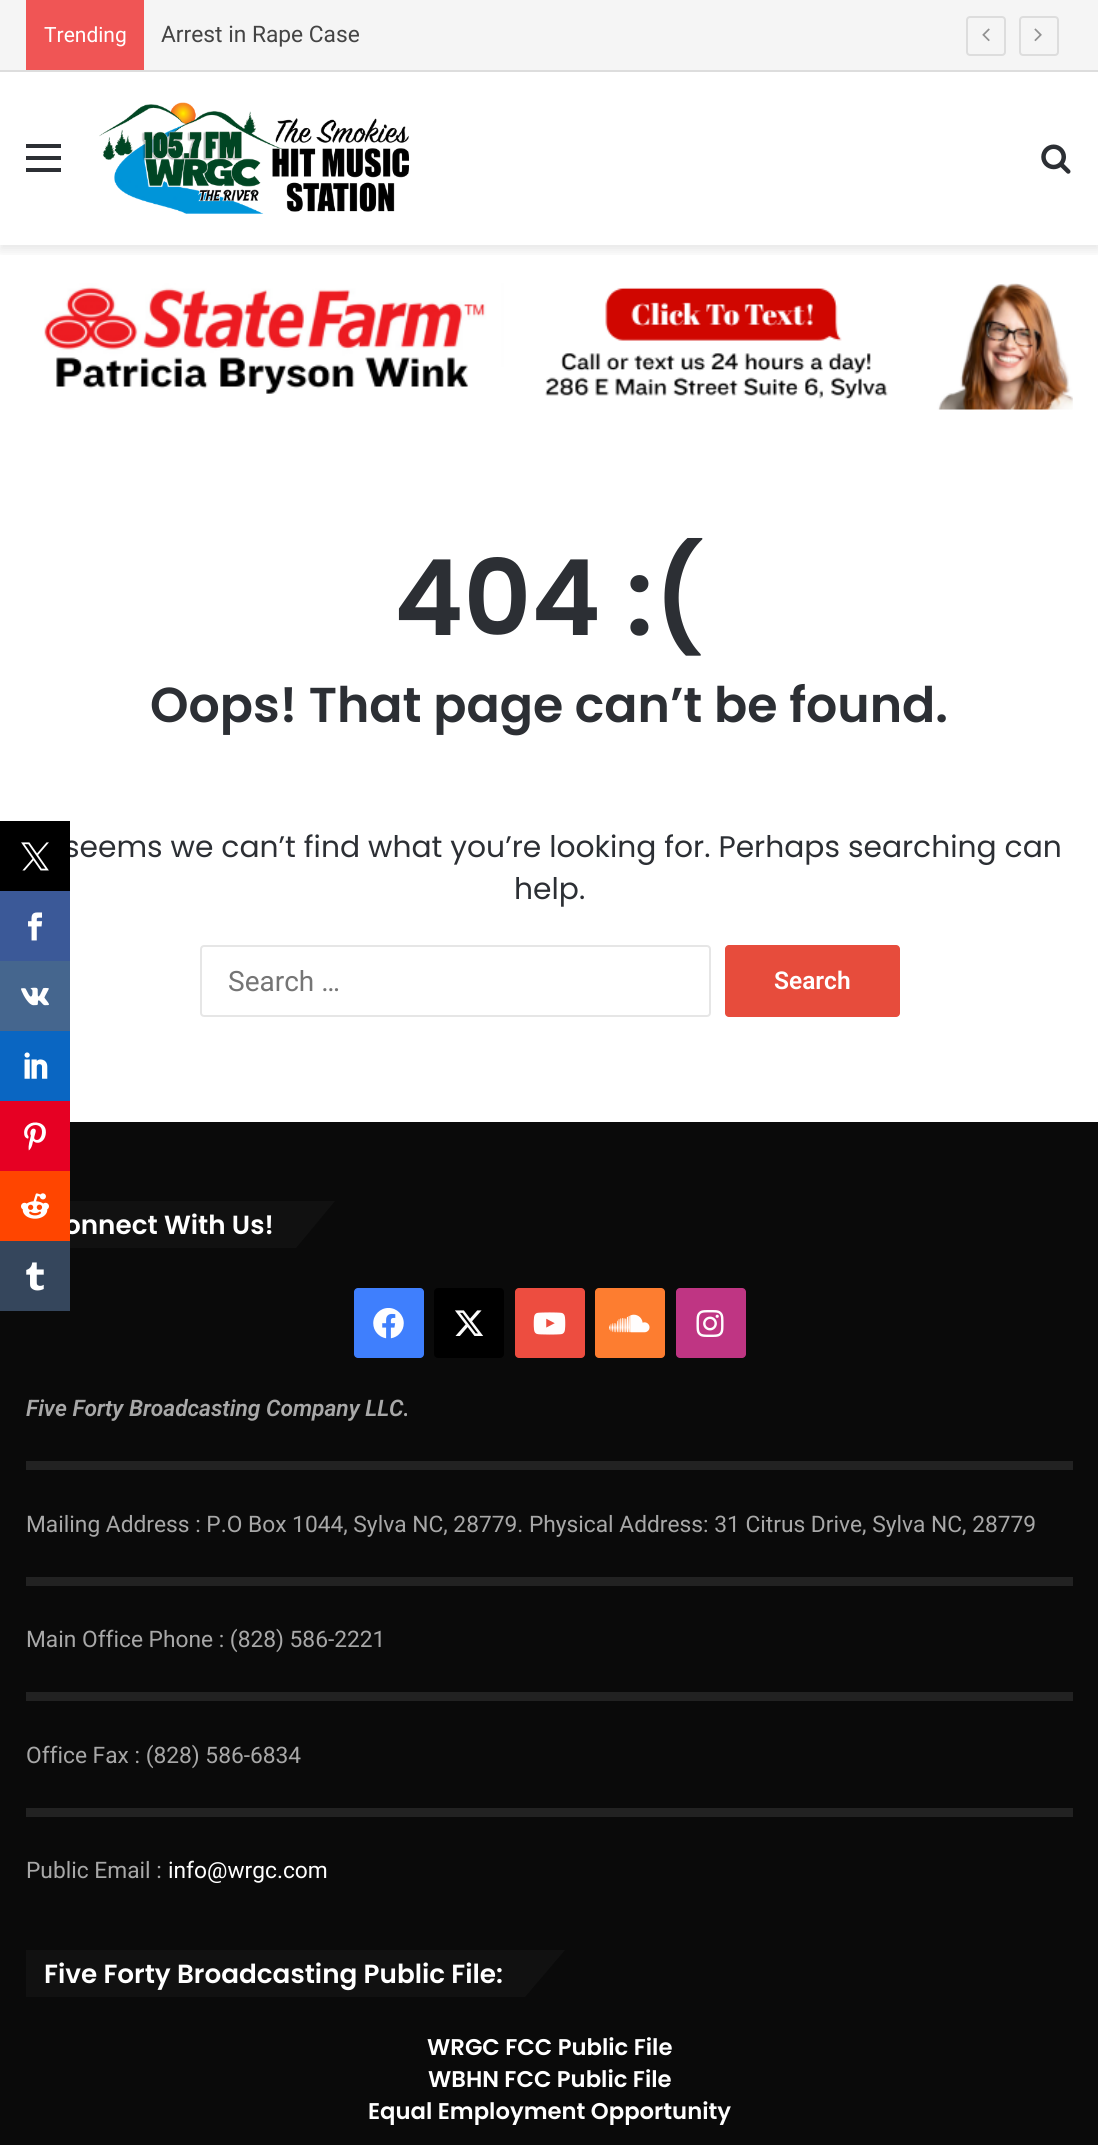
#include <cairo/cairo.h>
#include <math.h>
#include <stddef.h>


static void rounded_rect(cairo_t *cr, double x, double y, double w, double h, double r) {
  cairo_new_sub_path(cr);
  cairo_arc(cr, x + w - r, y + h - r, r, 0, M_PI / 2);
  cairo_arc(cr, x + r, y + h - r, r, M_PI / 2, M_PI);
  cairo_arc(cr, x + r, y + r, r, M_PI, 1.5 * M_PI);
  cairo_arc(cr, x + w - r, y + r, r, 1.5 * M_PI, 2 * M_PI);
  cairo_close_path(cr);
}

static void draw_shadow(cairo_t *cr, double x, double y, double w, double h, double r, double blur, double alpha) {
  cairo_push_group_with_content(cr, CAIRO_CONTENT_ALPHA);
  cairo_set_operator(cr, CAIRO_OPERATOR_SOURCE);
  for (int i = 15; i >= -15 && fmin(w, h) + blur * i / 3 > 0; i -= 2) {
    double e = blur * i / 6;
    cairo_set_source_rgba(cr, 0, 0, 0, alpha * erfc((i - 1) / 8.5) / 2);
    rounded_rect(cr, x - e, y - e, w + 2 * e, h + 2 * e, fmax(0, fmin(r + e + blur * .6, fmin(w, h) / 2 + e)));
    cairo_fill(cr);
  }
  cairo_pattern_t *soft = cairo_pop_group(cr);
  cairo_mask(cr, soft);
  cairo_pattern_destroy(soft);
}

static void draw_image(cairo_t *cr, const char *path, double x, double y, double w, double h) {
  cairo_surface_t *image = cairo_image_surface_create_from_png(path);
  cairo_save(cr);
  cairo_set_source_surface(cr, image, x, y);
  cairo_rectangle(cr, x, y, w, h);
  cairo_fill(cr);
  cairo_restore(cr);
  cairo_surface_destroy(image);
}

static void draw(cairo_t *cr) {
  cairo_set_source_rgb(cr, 1, 1, 1);
  cairo_paint(cr);
  cairo_save(cr);
  cairo_rectangle(cr, 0, 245, 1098, 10);
  cairo_clip(cr);
  cairo_set_source_rgb(cr, 0, 0, 0);
  draw_shadow(cr, 0, 77, 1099, 173, 0, 6, 0.1);
  cairo_restore(cr);
  cairo_set_source_rgb(cr, 245 / 255.0, 245 / 255.0, 245 / 255.0);
  cairo_rectangle(cr, 0, 0, 1098, 70);
  cairo_fill(cr);
  cairo_set_source_rgb(cr, 221 / 255.0, 221 / 255.0, 221 / 255.0);
  cairo_rectangle(cr, 0, 70, 1098, 2);
  cairo_fill(cr);
  cairo_set_source_rgb(cr, 240 / 255.0, 85 / 255.0, 85 / 255.0);
  cairo_rectangle(cr, 26, 0, 118, 70);
  cairo_fill(cr);
  rounded_rect(cr, 967, 17, 38, 38, 3);
  cairo_set_source_rgb(cr, 221 / 255.0, 221 / 255.0, 221 / 255.0);
  cairo_stroke(cr);
  draw_image(cr, "images/1.png", 982, 28, 8, 14);
  rounded_rect(cr, 1020, 17, 38, 38, 3);
  cairo_stroke(cr);
  draw_image(cr, "images/2.png", 1034, 28, 8, 14);
  cairo_set_source_rgb(cr, 44 / 255.0, 47 / 255.0, 52 / 255.0);
  cairo_rectangle(cr, 26, 156, 35, 4);
  cairo_fill(cr);
  cairo_rectangle(cr, 26, 144, 35, 4);
  cairo_fill(cr);
  cairo_rectangle(cr, 26, 168, 35, 4);
  cairo_fill(cr);
  draw_image(cr, "images/3.png", 99, 102, 310, 112);
  draw_image(cr, "images/4.png", 1041, 144, 30, 30);
  draw_image(cr, "images/5.png", 44, 283, 1029, 127);
  rounded_rect(cr, 201, 946, 509, 70, 3);
  cairo_set_source_rgb(cr, 230 / 255.0, 230 / 255.0, 230 / 255.0);
  cairo_stroke(cr);
  cairo_set_source_rgb(cr, 231 / 255.0, 76 / 255.0, 60 / 255.0);
  rounded_rect(cr, 725, 945, 175, 72, 4);
  cairo_fill(cr);
  cairo_set_source_rgb(cr, 10 / 255.0, 10 / 255.0, 10 / 255.0);
  cairo_rectangle(cr, 0, 1122, 1098, 1023);
  cairo_fill(cr);
  cairo_set_source_rgb(cr, 17 / 255.0, 17 / 255.0, 17 / 255.0);
  cairo_rectangle(cr, 70, 1201, 80, 47);
  cairo_fill(cr);
  cairo_new_path(cr);
  cairo_move_to(cr, 150, 1201);
  cairo_line_to(cr, 335, 1201);
  cairo_line_to(cr, 296, 1248);
  cairo_line_to(cr, 110, 1248);
  cairo_close_path(cr);
  cairo_fill(cr);
  cairo_set_source_rgb(cr, 63 / 255.0, 127 / 255.0, 253 / 255.0);
  rounded_rect(cr, 354, 1288, 70, 70, 4);
  cairo_fill(cr);
  draw_image(cr, "images/6.png", 373, 1308, 31, 31);
  cairo_set_source_rgb(cr, 0, 0, 0);
  rounded_rect(cr, 434, 1288, 70, 70, 4);
  cairo_fill(cr);
  draw_image(cr, "images/7.png", 455, 1310, 29, 26);
  cairo_set_source_rgb(cr, 237 / 255.0, 77 / 255.0, 64 / 255.0);
  rounded_rect(cr, 515, 1288, 70, 70, 4);
  cairo_fill(cr);
  draw_image(cr, "images/8.png", 533, 1312, 33, 23);
  cairo_set_source_rgb(cr, 253 / 255.0, 125 / 255.0, 48 / 255.0);
  rounded_rect(cr, 595, 1288, 70, 70, 4);
  cairo_fill(cr);
  draw_image(cr, "images/9.png", 609, 1314, 41, 19);
  cairo_set_source_rgb(cr, 191 / 255.0, 53 / 255.0, 131 / 255.0);
  rounded_rect(cr, 676, 1288, 70, 70, 4);
  cairo_fill(cr);
  draw_image(cr, "images/10.png", 696, 1310, 28, 27);
  cairo_set_source_rgb(cr, 34 / 255.0, 34 / 255.0, 34 / 255.0);
  cairo_rectangle(cr, 26, 1461, 1047, 9);
  cairo_fill(cr);
  cairo_rectangle(cr, 26, 1577, 1047, 9);
  cairo_fill(cr);
  cairo_rectangle(cr, 26, 1692, 1047, 9);
  cairo_fill(cr);
  cairo_rectangle(cr, 26, 1808, 1047, 9);
  cairo_fill(cr);
  cairo_set_source_rgb(cr, 17 / 255.0, 17 / 255.0, 17 / 255.0);
  cairo_rectangle(cr, 26, 1950, 193, 47);
  cairo_fill(cr);
  cairo_new_path(cr);
  cairo_move_to(cr, 219, 1950);
  cairo_line_to(cr, 565, 1950);
  cairo_line_to(cr, 525, 1997);
  cairo_line_to(cr, 179, 1997);
  cairo_close_path(cr);
  cairo_fill(cr);
  cairo_set_source_rgb(cr, 59 / 255.0, 89 / 255.0, 152 / 255.0);
  cairo_rectangle(cr, 0, 891, 70, 70);
  cairo_fill(cr);
  draw_image(cr, "images/12.png", 28, 912, 15, 29);
  cairo_set_source_rgb(cr, 69 / 255.0, 102 / 255.0, 142 / 255.0);
  cairo_rectangle(cr, 0, 961, 70, 70);
  cairo_fill(cr);
  draw_image(cr, "images/13.png", 21, 987, 28, 19);
  cairo_set_source_rgb(cr, 10 / 255.0, 102 / 255.0, 194 / 255.0);
  cairo_rectangle(cr, 0, 1031, 70, 70);
  cairo_fill(cr);
  draw_image(cr, "images/14.png", 24, 1052, 24, 27);
  cairo_set_source_rgb(cr, 230 / 255.0, 0, 35 / 255.0);
  cairo_rectangle(cr, 0, 1101, 70, 70);
  cairo_fill(cr);
  draw_image(cr, "images/15.png", 24, 1122, 22, 29);
  cairo_set_source_rgb(cr, 53 / 255.0, 70 / 255.0, 92 / 255.0);
  cairo_rectangle(cr, 0, 1241, 70, 70);
  cairo_fill(cr);
  draw_image(cr, "images/17.png", 26, 1262, 18, 29);
  cairo_select_font_face(cr, "Roboto", CAIRO_FONT_SLANT_NORMAL, CAIRO_FONT_WEIGHT_NORMAL);
  cairo_set_font_size(cr, 21);
  cairo_set_source_rgb(cr, 1, 1, 1);
  cairo_move_to(cr, 44, 42);
  cairo_show_text(cr, "Trending");
  cairo_set_font_size(cr, 22.75);
  cairo_set_source_rgb(cr, 68 / 255.0, 68 / 255.0, 68 / 255.0);
  cairo_move_to(cr, 161, 42);
  cairo_show_text(cr, "Arrest in Rape Case");
  cairo_select_font_face(cr, "Poppins SemiBold", CAIRO_FONT_SLANT_NORMAL, CAIRO_FONT_WEIGHT_NORMAL);
  cairo_set_font_size(cr, 105);
  cairo_set_source_rgb(cr, 44 / 255.0, 47 / 255.0, 52 / 255.0);
  cairo_move_to(cr, 394, 635);
  cairo_show_text(cr, "404 :(");
  cairo_set_font_size(cr, 49);
  cairo_move_to(cr, 150, 722);
  cairo_show_text(cr, "Oops! That page can’t be found.");
  cairo_select_font_face(cr, "Poppins", CAIRO_FONT_SLANT_NORMAL, CAIRO_FONT_WEIGHT_NORMAL);
  cairo_set_font_size(cr, 29.75);
  cairo_move_to(cr, 64, 857);
  cairo_show_text(cr, "seems we can’t find what you’re looking for. Perhaps searching can");
  cairo_move_to(cr, 514, 899);
  cairo_show_text(cr, "help.");
  cairo_select_font_face(cr, "Roboto", CAIRO_FONT_SLANT_NORMAL, CAIRO_FONT_WEIGHT_NORMAL);
  cairo_set_font_size(cr, 28);
  cairo_set_source_rgb(cr, 117 / 255.0, 117 / 255.0, 117 / 255.0);
  cairo_move_to(cr, 228, 991);
  cairo_show_text(cr, "Search …");
  cairo_select_font_face(cr, "Roboto SemiBold", CAIRO_FONT_SLANT_NORMAL, CAIRO_FONT_WEIGHT_NORMAL);
  cairo_set_font_size(cr, 24.5);
  cairo_set_source_rgb(cr, 1, 1, 1);
  cairo_move_to(cr, 774, 989);
  cairo_show_text(cr, "Search");
  cairo_select_font_face(cr, "Poppins SemiBold", CAIRO_FONT_SLANT_NORMAL, CAIRO_FONT_WEIGHT_NORMAL);
  cairo_set_font_size(cr, 26.25);
  cairo_move_to(cr, 64, 1234);
  cairo_show_text(cr, "onnect With Us!");
  cairo_select_font_face(cr, "Roboto SemiBold", CAIRO_FONT_SLANT_ITALIC, CAIRO_FONT_WEIGHT_NORMAL);
  cairo_set_font_size(cr, 22.75);
  cairo_set_source_rgb(cr, 168 / 255.0, 168 / 255.0, 168 / 255.0);
  cairo_move_to(cr, 26, 1416);
  cairo_show_text(cr, "Five Forty Broadcasting Company LLC.");
  cairo_select_font_face(cr, "Roboto", CAIRO_FONT_SLANT_NORMAL, CAIRO_FONT_WEIGHT_NORMAL);
  cairo_move_to(cr, 26, 1532);
  cairo_show_text(cr, "Mailing Address : P.O Box 1044, Sylva NC, 28779. Physical Address: 31 Citrus Drive, Sylva NC, 28779");
  cairo_move_to(cr, 26, 1647);
  cairo_show_text(cr, "Main Office Phone : (828) 586-2221");
  cairo_move_to(cr, 26, 1763);
  cairo_show_text(cr, "Office Fax : (828) 586-6834");
  cairo_move_to(cr, 26, 1878);
  cairo_show_text(cr, "Public Email :");
  cairo_set_source_rgb(cr, 1, 1, 1);
  cairo_move_to(cr, 168, 1878);
  cairo_show_text(cr, "info@wrgc.com");
  cairo_select_font_face(cr, "Poppins SemiBold", CAIRO_FONT_SLANT_NORMAL, CAIRO_FONT_WEIGHT_NORMAL);
  cairo_set_font_size(cr, 26.25);
  cairo_move_to(cr, 44, 1983);
  cairo_show_text(cr, "Five Forty Broadcasting Public File:");
  cairo_set_font_size(cr, 22.75);
  cairo_move_to(cr, 427, 2055);
  cairo_show_text(cr, "WRGC FCC Public File");
  cairo_move_to(cr, 428, 2087);
  cairo_show_text(cr, "WBHN FCC Public File");
  cairo_move_to(cr, 368, 2119);
  cairo_show_text(cr, "Equal Employment Opportunity");
  cairo_set_source_rgb(cr, 0, 0, 0);
  cairo_rectangle(cr, 0, 821, 70, 70);
  cairo_fill(cr);
  draw_image(cr, "images/11.png", 21, 842, 28, 29);
  cairo_set_source_rgb(cr, 1, 69 / 255.0, 0);
  cairo_rectangle(cr, 0, 1171, 70, 70);
  cairo_fill(cr);
  draw_image(cr, "images/16.png", 21, 1193, 28, 26);
}

int main(void) {
  cairo_surface_t *surface = cairo_image_surface_create(CAIRO_FORMAT_RGB24, 1098, 2145);
  cairo_t *cr = cairo_create(surface);
  cairo_font_options_t *options = cairo_font_options_create();
  cairo_font_options_set_hint_metrics(options, CAIRO_HINT_METRICS_OFF);
  cairo_font_options_set_hint_style(options, CAIRO_HINT_STYLE_NONE);
  cairo_set_font_options(cr, options);
  cairo_set_miter_limit(cr, 4);
  draw(cr);
  cairo_surface_write_to_png(surface, "out.png");
  cairo_font_options_destroy(options);
  cairo_destroy(cr);
  cairo_surface_destroy(surface);
  return 0;
}
